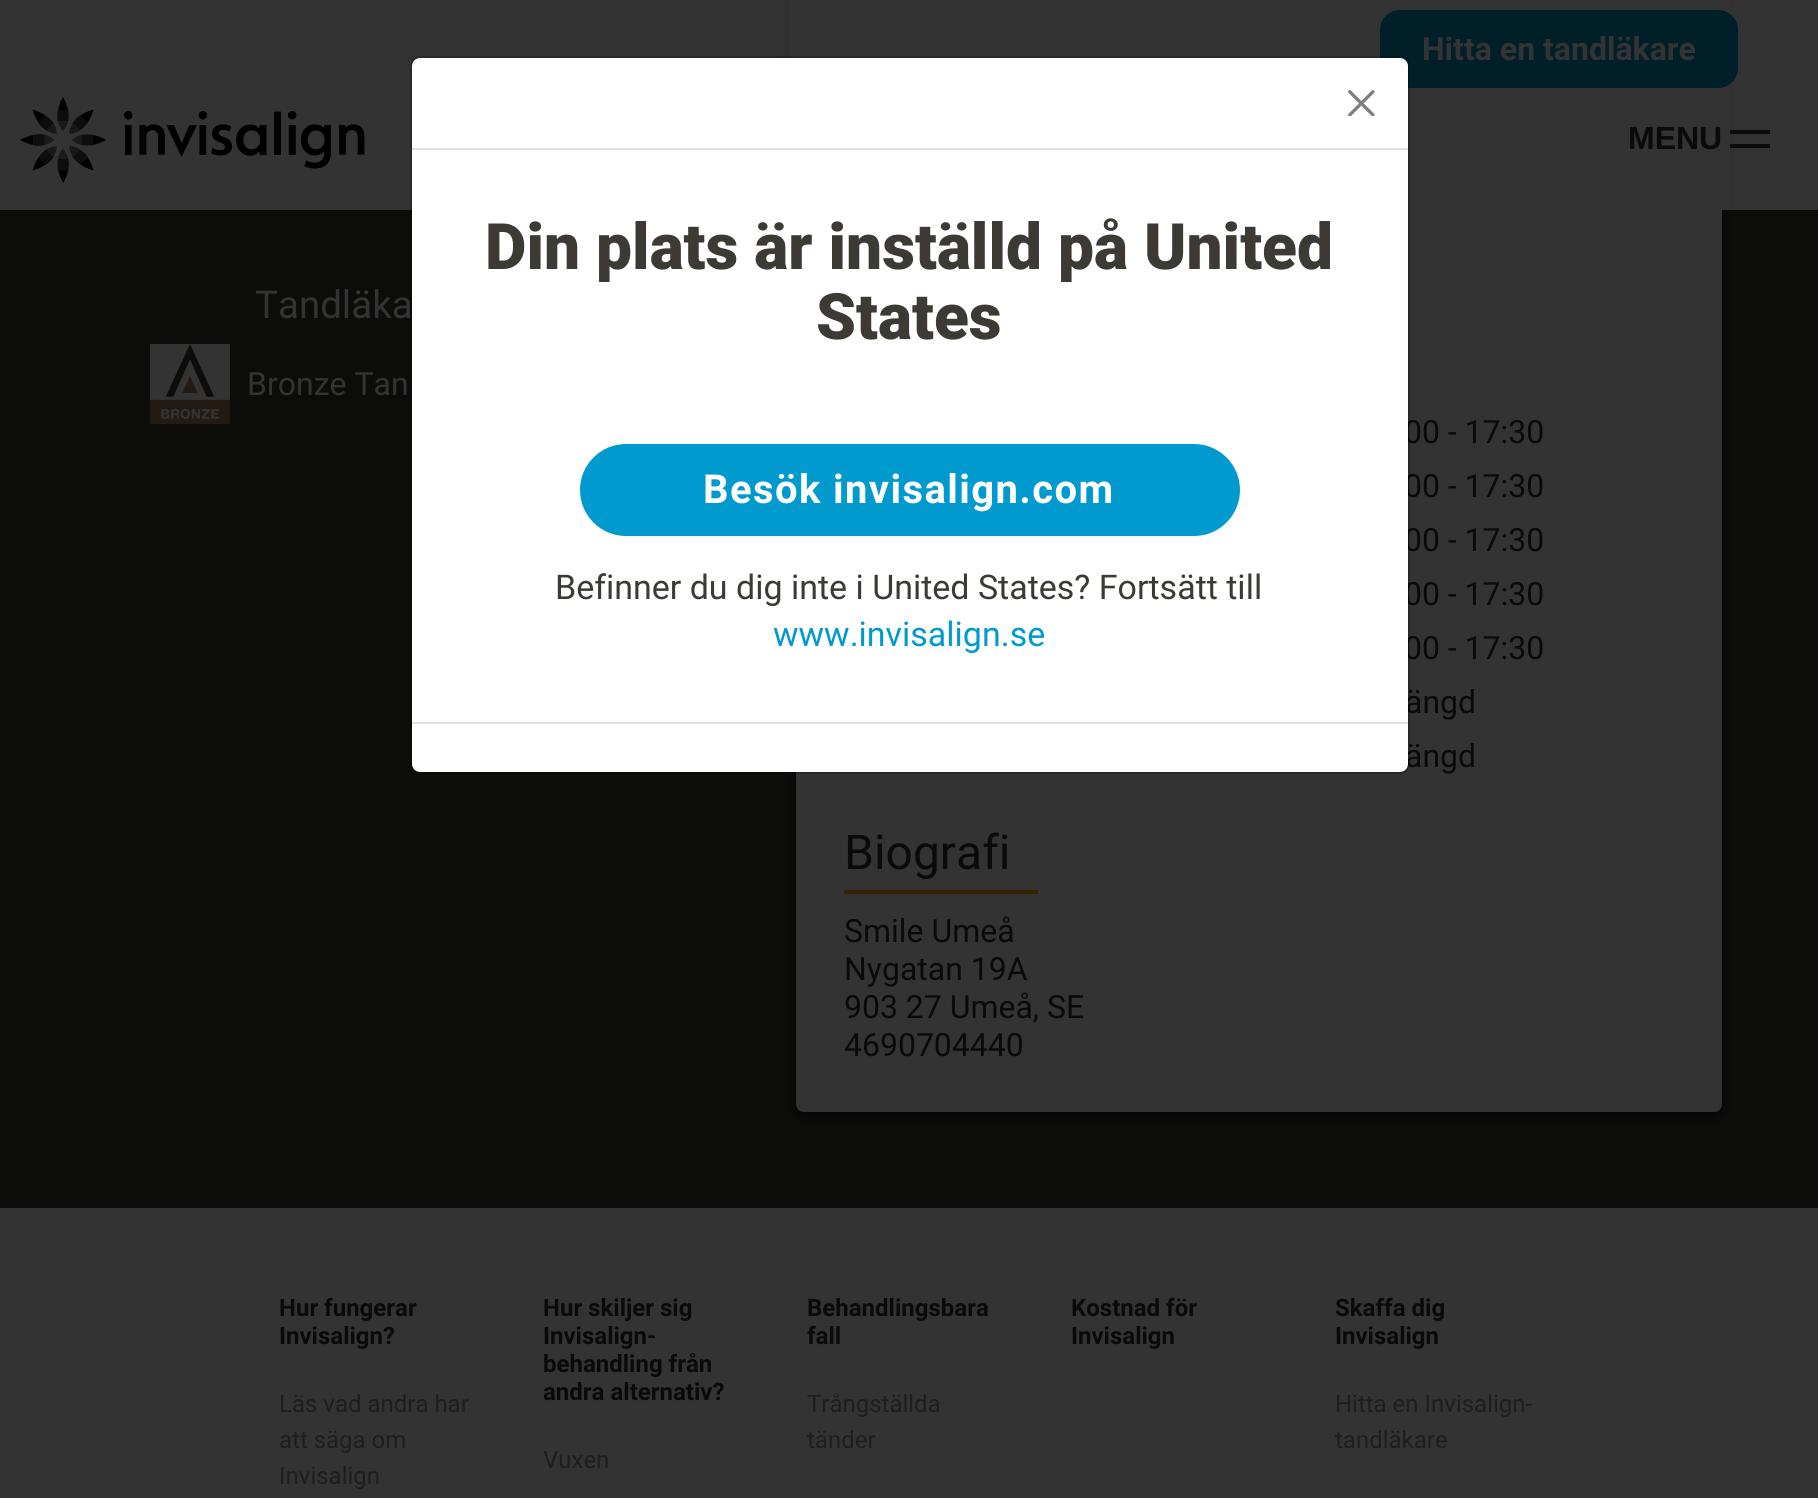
#include <cairo/cairo.h>
#include <math.h>
#include <stddef.h>


static void draw_spaced(cairo_t *cr, double x, double y, const char *s, double letter, double word) {
  cairo_move_to(cr, x, y);
  while (*s) {
    char ch[5] = {0};
    int n = 0;
    do ch[n++] = *s++; while ((*s & 0xC0) == 0x80);
    cairo_show_text(cr, ch);
    cairo_rel_move_to(cr, letter + word * (*ch == ' '), 0);
  }
}

static void rounded_rect(cairo_t *cr, double x, double y, double w, double h, double r) {
  cairo_new_sub_path(cr);
  cairo_arc(cr, x + w - r, y + h - r, r, 0, M_PI / 2);
  cairo_arc(cr, x + r, y + h - r, r, M_PI / 2, M_PI);
  cairo_arc(cr, x + r, y + r, r, M_PI, 1.5 * M_PI);
  cairo_arc(cr, x + w - r, y + r, r, 1.5 * M_PI, 2 * M_PI);
  cairo_close_path(cr);
}

static void draw_shadow(cairo_t *cr, double x, double y, double w, double h, double r, double blur, double alpha) {
  cairo_push_group_with_content(cr, CAIRO_CONTENT_ALPHA);
  cairo_set_operator(cr, CAIRO_OPERATOR_SOURCE);
  for (int i = 15; i >= -15 && fmin(w, h) + blur * i / 3 > 0; i -= 2) {
    double e = blur * i / 6;
    cairo_set_source_rgba(cr, 0, 0, 0, alpha * erfc((i - 1) / 8.5) / 2);
    rounded_rect(cr, x - e, y - e, w + 2 * e, h + 2 * e, fmax(0, fmin(r + e + blur * .6, fmin(w, h) / 2 + e)));
    cairo_fill(cr);
  }
  cairo_pattern_t *soft = cairo_pop_group(cr);
  cairo_mask(cr, soft);
  cairo_pattern_destroy(soft);
}

static void draw_image(cairo_t *cr, const char *path, double x, double y, double w, double h) {
  cairo_surface_t *image = cairo_image_surface_create_from_png(path);
  cairo_save(cr);
  cairo_set_source_surface(cr, image, x, y);
  cairo_rectangle(cr, x, y, w, h);
  cairo_fill(cr);
  cairo_restore(cr);
  cairo_surface_destroy(image);
}

static void draw(cairo_t *cr) {
  cairo_set_source_rgb(cr, 51 / 255.0, 51 / 255.0, 51 / 255.0);
  cairo_paint(cr);
  cairo_set_source_rgb(cr, 12 / 255.0, 12 / 255.0, 11 / 255.0);
  cairo_rectangle(cr, 0, 210, 1818, 998);
  cairo_fill(cr);
  cairo_set_source_rgb(cr, 0, 0, 0);
  draw_shadow(cr, 796, -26, 926, 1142, 8, 6, 0.6);
  cairo_set_source_rgb(cr, 51 / 255.0, 51 / 255.0, 51 / 255.0);
  rounded_rect(cr, 796, -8, 926, 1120, 8);
  cairo_fill(cr);
  cairo_rectangle(cr, 788, 0, 942, 210);
  cairo_fill(cr);
  cairo_set_source_rgb(cr, 0, 31 / 255.0, 41 / 255.0);
  rounded_rect(cr, 1381, 11, 356, 76, 19);
  cairo_fill_preserve(cr);
  cairo_stroke(cr);
  draw_image(cr, "images/1.png", 20, 97, 345, 86);
  cairo_set_source_rgb(cr, 12 / 255.0, 12 / 255.0, 11 / 255.0);
  cairo_rectangle(cr, 1730, 130, 40, 4);
  cairo_fill(cr);
  cairo_rectangle(cr, 1730, 144, 40, 4);
  cairo_fill(cr);
  draw_image(cr, "images/2.png", 150, 344, 80, 80);
  cairo_set_source_rgb(cr, 51 / 255.0, 33 / 255.0, 0);
  cairo_rectangle(cr, 844, 890, 194, 4);
  cairo_fill(cr);
  cairo_select_font_face(cr, "Roboto", CAIRO_FONT_SLANT_NORMAL, CAIRO_FONT_WEIGHT_BOLD);
  cairo_set_font_size(cr, 32);
  cairo_set_source_rgb(cr, 51 / 255.0, 51 / 255.0, 51 / 255.0);
  cairo_move_to(cr, 1422, 60);
  cairo_show_text(cr, "Hitta en tandläkare");
  cairo_select_font_face(cr, "Liberation Sans", CAIRO_FONT_SLANT_NORMAL, CAIRO_FONT_WEIGHT_BOLD);
  cairo_set_source_rgb(cr, 10 / 255.0, 10 / 255.0, 10 / 255.0);
  cairo_move_to(cr, 1628, 149);
  cairo_show_text(cr, "MENU");
  cairo_select_font_face(cr, "Roboto", CAIRO_FONT_SLANT_NORMAL, CAIRO_FONT_WEIGHT_NORMAL);
  cairo_set_font_size(cr, 38.5);
  cairo_set_source_rgb(cr, 51 / 255.0, 51 / 255.0, 51 / 255.0);
  cairo_move_to(cr, 255, 318);
  cairo_show_text(cr, "Tandläka");
  cairo_set_font_size(cr, 32);
  cairo_move_to(cr, 247, 395);
  cairo_show_text(cr, "Bronze Tan");
  cairo_set_source_rgb(cr, 10 / 255.0, 10 / 255.0, 10 / 255.0);
  cairo_move_to(cr, 1404, 443);
  cairo_show_text(cr, "00 - 17:30");
  cairo_move_to(cr, 1404, 497);
  cairo_show_text(cr, "00 - 17:30");
  cairo_move_to(cr, 1404, 551);
  cairo_show_text(cr, "00 - 17:30");
  cairo_move_to(cr, 1404, 605);
  cairo_show_text(cr, "00 - 17:30");
  cairo_move_to(cr, 1404, 659);
  cairo_show_text(cr, "00 - 17:30");
  cairo_move_to(cr, 1405, 713);
  cairo_show_text(cr, "ängd");
  cairo_move_to(cr, 1405, 767);
  cairo_show_text(cr, "ängd");
  cairo_set_font_size(cr, 48);
  cairo_move_to(cr, 844, 869);
  cairo_show_text(cr, "Biografi");
  cairo_set_font_size(cr, 32);
  cairo_move_to(cr, 844, 942);
  cairo_show_text(cr, "Smile Umeå");
  cairo_move_to(cr, 844, 980);
  cairo_show_text(cr, "Nygatan 19A");
  cairo_move_to(cr, 844, 1018);
  cairo_show_text(cr, "903 27 Umeå, SE");
  cairo_move_to(cr, 844, 1056);
  cairo_show_text(cr, "4690704440");
  cairo_select_font_face(cr, "Roboto", CAIRO_FONT_SLANT_NORMAL, CAIRO_FONT_WEIGHT_BOLD);
  cairo_set_font_size(cr, 24);
  cairo_move_to(cr, 279, 1316);
  cairo_show_text(cr, "Hur fungerar");
  cairo_move_to(cr, 279, 1344);
  cairo_show_text(cr, "Invisalign?");
  cairo_select_font_face(cr, "Roboto", CAIRO_FONT_SLANT_NORMAL, CAIRO_FONT_WEIGHT_NORMAL);
  cairo_set_source_rgb(cr, 30 / 255.0, 30 / 255.0, 30 / 255.0);
  cairo_move_to(cr, 279, 1412);
  cairo_show_text(cr, "Läs vad andra har");
  cairo_move_to(cr, 279, 1448);
  cairo_show_text(cr, "att säga om");
  cairo_move_to(cr, 279, 1484);
  cairo_show_text(cr, "Invisalign");
  cairo_select_font_face(cr, "Roboto", CAIRO_FONT_SLANT_NORMAL, CAIRO_FONT_WEIGHT_BOLD);
  cairo_set_source_rgb(cr, 10 / 255.0, 10 / 255.0, 10 / 255.0);
  cairo_move_to(cr, 543, 1316);
  cairo_show_text(cr, "Hur skiljer sig");
  cairo_move_to(cr, 543, 1344);
  cairo_show_text(cr, "Invisalign-");
  cairo_move_to(cr, 543, 1372);
  cairo_show_text(cr, "behandling från");
  cairo_move_to(cr, 543, 1400);
  cairo_show_text(cr, "andra alternativ?");
  cairo_select_font_face(cr, "Roboto", CAIRO_FONT_SLANT_NORMAL, CAIRO_FONT_WEIGHT_NORMAL);
  cairo_set_source_rgb(cr, 30 / 255.0, 30 / 255.0, 30 / 255.0);
  cairo_move_to(cr, 543, 1468);
  cairo_show_text(cr, "Vuxen");
  cairo_select_font_face(cr, "Roboto", CAIRO_FONT_SLANT_NORMAL, CAIRO_FONT_WEIGHT_BOLD);
  cairo_set_source_rgb(cr, 10 / 255.0, 10 / 255.0, 10 / 255.0);
  cairo_move_to(cr, 807, 1316);
  cairo_show_text(cr, "Behandlingsbara");
  cairo_move_to(cr, 807, 1344);
  cairo_show_text(cr, "fall");
  cairo_select_font_face(cr, "Roboto", CAIRO_FONT_SLANT_NORMAL, CAIRO_FONT_WEIGHT_NORMAL);
  cairo_set_source_rgb(cr, 30 / 255.0, 30 / 255.0, 30 / 255.0);
  cairo_move_to(cr, 807, 1412);
  cairo_show_text(cr, "Trångställda");
  cairo_move_to(cr, 807, 1448);
  cairo_show_text(cr, "tänder");
  cairo_select_font_face(cr, "Roboto", CAIRO_FONT_SLANT_NORMAL, CAIRO_FONT_WEIGHT_BOLD);
  cairo_set_source_rgb(cr, 10 / 255.0, 10 / 255.0, 10 / 255.0);
  cairo_move_to(cr, 1071, 1316);
  cairo_show_text(cr, "Kostnad för");
  cairo_move_to(cr, 1071, 1344);
  cairo_show_text(cr, "Invisalign");
  cairo_move_to(cr, 1335, 1316);
  cairo_show_text(cr, "Skaffa dig");
  cairo_move_to(cr, 1335, 1344);
  cairo_show_text(cr, "Invisalign");
  cairo_select_font_face(cr, "Roboto", CAIRO_FONT_SLANT_NORMAL, CAIRO_FONT_WEIGHT_NORMAL);
  cairo_set_source_rgb(cr, 30 / 255.0, 30 / 255.0, 30 / 255.0);
  cairo_move_to(cr, 1335, 1412);
  cairo_show_text(cr, "Hitta en Invisalign-");
  cairo_move_to(cr, 1335, 1448);
  cairo_show_text(cr, "tandläkare");
  cairo_set_source_rgb(cr, 1, 1, 1);
  rounded_rect(cr, 412, 58, 996, 714, 8);
  cairo_fill(cr);
  rounded_rect(cr, 411, 57, 998, 716, 9);
  cairo_set_source_rgba(cr, 0, 0, 0, 0.2);
  cairo_stroke(cr);
  cairo_set_source_rgb(cr, 222 / 255.0, 226 / 255.0, 230 / 255.0);
  cairo_rectangle(cr, 412, 148, 996, 2);
  cairo_fill(cr);
  draw_image(cr, "images/3.png", 1348, 90, 27, 26);
  cairo_select_font_face(cr, "Roboto Black", CAIRO_FONT_SLANT_NORMAL, CAIRO_FONT_WEIGHT_NORMAL);
  cairo_set_font_size(cr, 64);
  cairo_set_source_rgb(cr, 61 / 255.0, 57 / 255.0, 53 / 255.0);
  cairo_move_to(cr, 485, 269);
  cairo_show_text(cr, "Din plats är inställd på United");
  cairo_move_to(cr, 816, 339);
  cairo_show_text(cr, "States");
  cairo_set_source_rgb(cr, 0, 154 / 255.0, 206 / 255.0);
  rounded_rect(cr, 582, 446, 656, 88, 44);
  cairo_fill_preserve(cr);
  cairo_set_line_width(cr, 4);
  cairo_stroke(cr);
  cairo_select_font_face(cr, "Roboto", CAIRO_FONT_SLANT_NORMAL, CAIRO_FONT_WEIGHT_BOLD);
  cairo_set_font_size(cr, 40);
  cairo_set_source_rgb(cr, 1, 1, 1);
  draw_spaced(cr, 703, 503, "Besök invisalign.com", 1.4, 0);
  cairo_select_font_face(cr, "Roboto", CAIRO_FONT_SLANT_NORMAL, CAIRO_FONT_WEIGHT_NORMAL);
  cairo_set_font_size(cr, 34);
  cairo_set_source_rgb(cr, 61 / 255.0, 57 / 255.0, 53 / 255.0);
  cairo_move_to(cr, 555, 599);
  cairo_show_text(cr, "Befinner du dig inte i United States? Fortsätt till");
  cairo_set_source_rgb(cr, 0, 154 / 255.0, 206 / 255.0);
  cairo_move_to(cr, 773, 646);
  cairo_show_text(cr, "www.invisalign.se");
  cairo_set_source_rgb(cr, 222 / 255.0, 226 / 255.0, 230 / 255.0);
  cairo_rectangle(cr, 412, 722, 996, 2);
  cairo_fill(cr);
}

int main(void) {
  cairo_surface_t *surface = cairo_image_surface_create(CAIRO_FORMAT_RGB24, 1818, 1498);
  cairo_t *cr = cairo_create(surface);
  cairo_font_options_t *options = cairo_font_options_create();
  cairo_font_options_set_hint_metrics(options, CAIRO_HINT_METRICS_OFF);
  cairo_font_options_set_hint_style(options, CAIRO_HINT_STYLE_NONE);
  cairo_set_font_options(cr, options);
  cairo_set_miter_limit(cr, 4);
  draw(cr);
  cairo_surface_write_to_png(surface, "out.png");
  cairo_font_options_destroy(options);
  cairo_destroy(cr);
  cairo_surface_destroy(surface);
  return 0;
}
